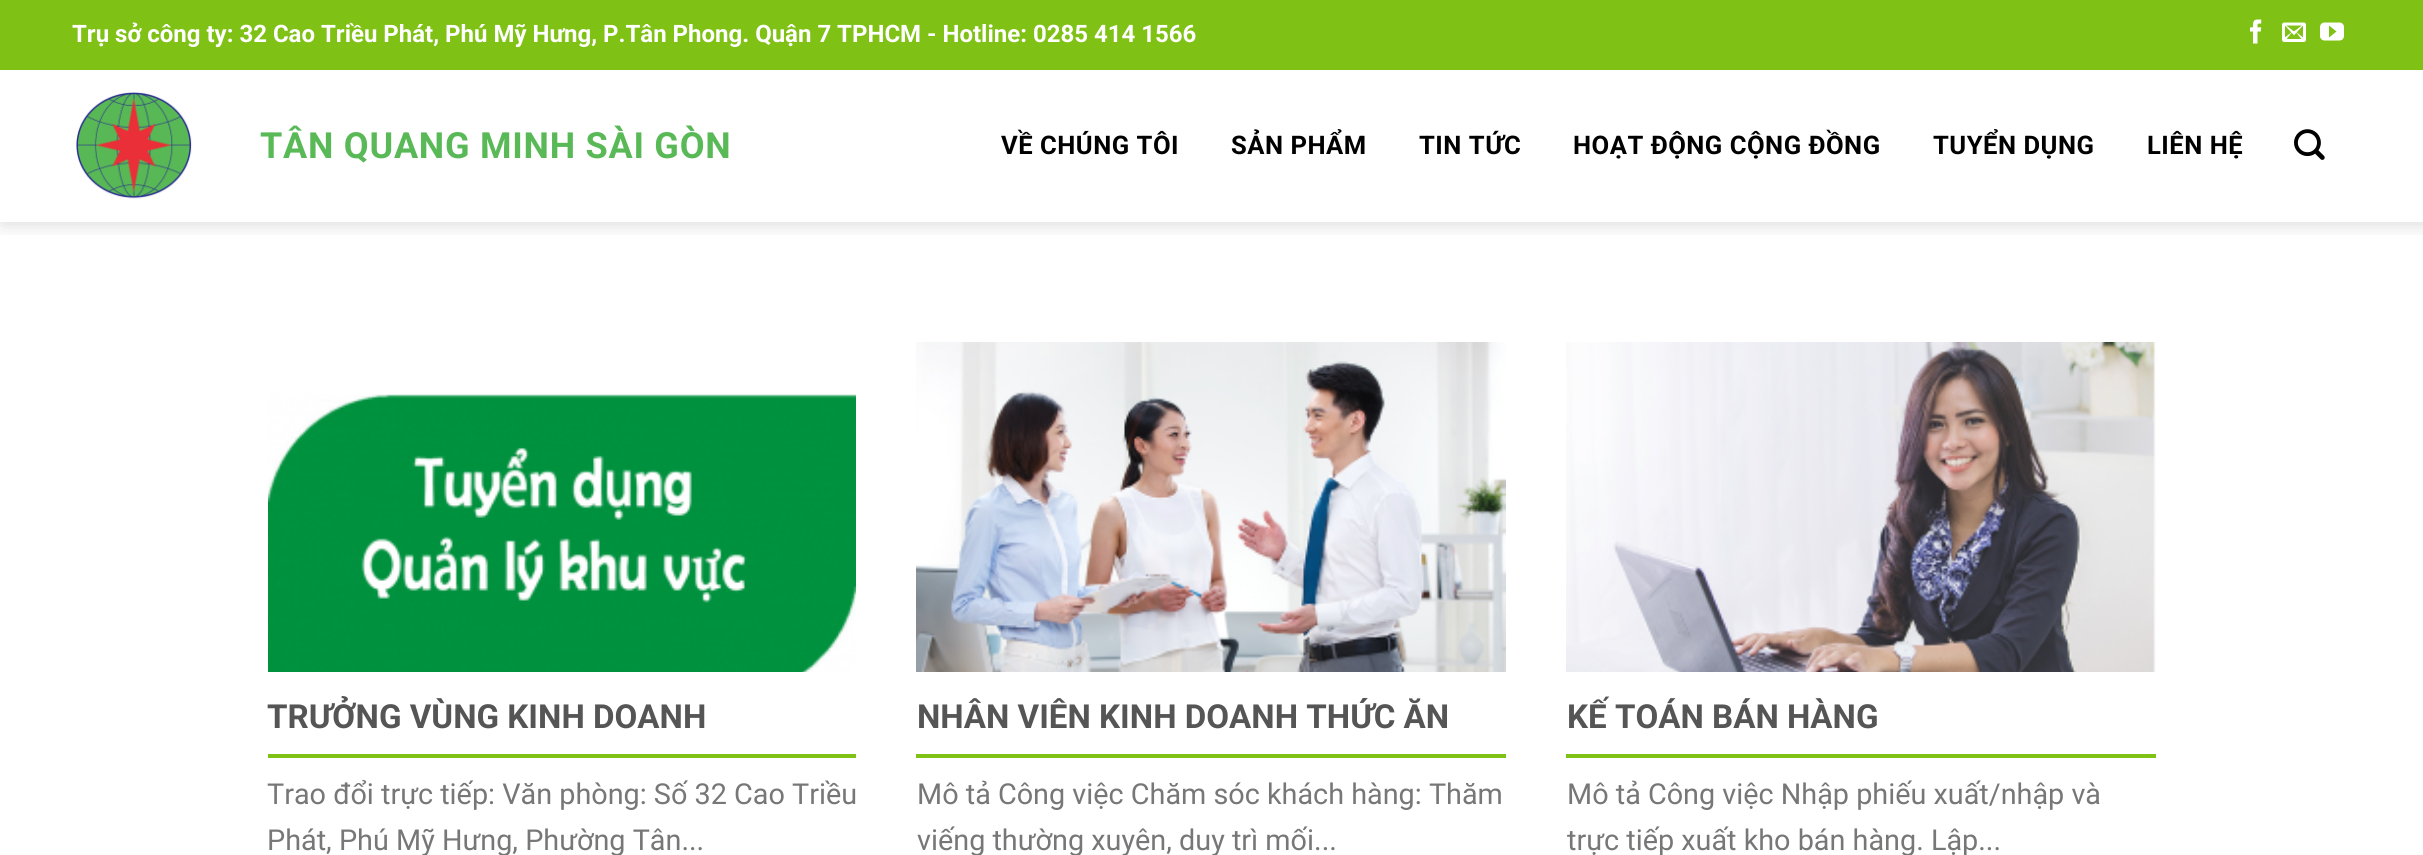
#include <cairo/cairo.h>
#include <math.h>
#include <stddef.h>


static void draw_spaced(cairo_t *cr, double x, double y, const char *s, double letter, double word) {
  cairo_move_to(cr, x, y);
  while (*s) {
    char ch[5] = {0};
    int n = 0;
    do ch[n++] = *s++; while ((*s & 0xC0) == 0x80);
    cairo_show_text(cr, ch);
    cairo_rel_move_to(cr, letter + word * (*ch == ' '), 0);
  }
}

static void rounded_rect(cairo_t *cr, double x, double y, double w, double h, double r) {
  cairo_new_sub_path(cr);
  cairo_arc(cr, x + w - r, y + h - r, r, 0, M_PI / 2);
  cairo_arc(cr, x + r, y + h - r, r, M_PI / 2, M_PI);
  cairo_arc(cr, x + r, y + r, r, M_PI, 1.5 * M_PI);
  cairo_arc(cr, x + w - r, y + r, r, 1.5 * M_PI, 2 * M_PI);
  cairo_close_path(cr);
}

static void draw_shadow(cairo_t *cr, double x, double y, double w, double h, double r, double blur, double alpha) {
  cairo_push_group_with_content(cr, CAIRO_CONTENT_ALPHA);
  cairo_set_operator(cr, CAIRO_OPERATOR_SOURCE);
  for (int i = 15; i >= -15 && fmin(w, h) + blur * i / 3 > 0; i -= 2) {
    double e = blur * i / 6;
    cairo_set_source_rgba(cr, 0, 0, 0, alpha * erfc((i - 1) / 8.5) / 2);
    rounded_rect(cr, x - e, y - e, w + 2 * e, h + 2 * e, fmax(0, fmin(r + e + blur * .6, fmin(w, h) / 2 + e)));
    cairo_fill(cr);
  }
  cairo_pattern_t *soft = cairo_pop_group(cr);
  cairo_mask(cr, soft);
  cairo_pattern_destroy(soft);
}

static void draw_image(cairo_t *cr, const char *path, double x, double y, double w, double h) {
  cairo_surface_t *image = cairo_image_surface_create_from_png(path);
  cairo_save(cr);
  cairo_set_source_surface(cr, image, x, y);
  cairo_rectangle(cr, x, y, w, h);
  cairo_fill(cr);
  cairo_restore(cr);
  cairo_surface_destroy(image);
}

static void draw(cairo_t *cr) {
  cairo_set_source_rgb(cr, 1, 1, 1);
  cairo_paint(cr);
  cairo_save(cr);
  cairo_rectangle(cr, 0, 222, 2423, 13);
  cairo_clip(cr);
  cairo_set_source_rgb(cr, 0, 0, 0);
  draw_shadow(cr, 2, 2, 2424, 222, 0, 10, 0.15);
  cairo_restore(cr);
  cairo_set_source_rgb(cr, 127 / 255.0, 193 / 255.0, 21 / 255.0);
  cairo_rectangle(cr, 0, 0, 2423, 70);
  cairo_fill(cr);
  draw_image(cr, "images/1.png", 2250, 19, 12, 25);
  draw_image(cr, "images/2.png", 2282, 22, 24, 20);
  draw_image(cr, "images/3.png", 2320, 22, 24, 19);
  draw_image(cr, "images/4.png", 76, 92, 116, 107);
  draw_image(cr, "images/5.png", 2294, 129, 31, 31);
  draw_image(cr, "images/6.png", 268, 394, 588, 278);
  cairo_rectangle(cr, 268, 754, 588, 4);
  cairo_fill(cr);
  draw_image(cr, "images/7.png", 916, 342, 590, 330);
  cairo_rectangle(cr, 916, 754, 590, 4);
  cairo_fill(cr);
  draw_image(cr, "images/8.png", 1566, 342, 590, 330);
  cairo_rectangle(cr, 1566, 754, 590, 4);
  cairo_fill(cr);
  cairo_select_font_face(cr, "Roboto", CAIRO_FONT_SLANT_NORMAL, CAIRO_FONT_WEIGHT_BOLD);
  cairo_set_font_size(cr, 24);
  cairo_set_source_rgb(cr, 1, 1, 1);
  cairo_move_to(cr, 72, 42);
  cairo_show_text(cr, "Trụ sở công ty: 32 Cao Triều Phát, Phú Mỹ Hưng, P.Tân Phong. Quận 7 TPHCM - Hotline: 0285 414 1566");
  cairo_set_font_size(cr, 36);
  cairo_set_source_rgb(cr, 89 / 255.0, 185 / 255.0, 87 / 255.0);
  draw_spaced(cr, 260, 158, "TÂN QUANG MINH SÀI GÒN", 0.75, 0);
  cairo_set_font_size(cr, 25.6);
  cairo_set_source_rgb(cr, 0, 0, 0);
  draw_spaced(cr, 1001, 154, "VỀ CHÚNG TÔI", 0.5, 0);
  draw_spaced(cr, 1231, 154, "SẢN PHẨM", 0.5, 0);
  draw_spaced(cr, 1419, 154, "TIN TỨC", 0.5, 0);
  draw_spaced(cr, 1573, 154, "HOẠT ĐỘNG CỘNG ĐỒNG", 0.5, 0);
  draw_spaced(cr, 1933, 154, "TUYỂN DỤNG", 0.5, 0);
  draw_spaced(cr, 2147, 154, "LIÊN HỆ", 0.5, 0);
  cairo_set_font_size(cr, 33.1);
  cairo_set_source_rgb(cr, 85 / 255.0, 85 / 255.0, 85 / 255.0);
  cairo_move_to(cr, 267, 728);
  cairo_show_text(cr, "TRƯỞNG VÙNG KINH DOANH");
  cairo_select_font_face(cr, "Roboto", CAIRO_FONT_SLANT_NORMAL, CAIRO_FONT_WEIGHT_NORMAL);
  cairo_set_font_size(cr, 28.8);
  cairo_set_source_rgb(cr, 119 / 255.0, 119 / 255.0, 119 / 255.0);
  cairo_move_to(cr, 267, 804);
  cairo_show_text(cr, "Trao đổi trực tiếp: Văn phòng: Số 32 Cao Triều");
  cairo_move_to(cr, 267, 850);
  cairo_show_text(cr, "Phát, Phú Mỹ Hưng, Phường Tân...");
  cairo_select_font_face(cr, "Roboto", CAIRO_FONT_SLANT_NORMAL, CAIRO_FONT_WEIGHT_BOLD);
  cairo_set_font_size(cr, 33.1);
  cairo_set_source_rgb(cr, 85 / 255.0, 85 / 255.0, 85 / 255.0);
  cairo_move_to(cr, 917, 728);
  cairo_show_text(cr, "NHÂN VIÊN KINH DOANH THỨC ĂN");
  cairo_select_font_face(cr, "Roboto", CAIRO_FONT_SLANT_NORMAL, CAIRO_FONT_WEIGHT_NORMAL);
  cairo_set_font_size(cr, 28.8);
  cairo_set_source_rgb(cr, 119 / 255.0, 119 / 255.0, 119 / 255.0);
  cairo_move_to(cr, 917, 804);
  cairo_show_text(cr, "Mô tả Công việc Chăm sóc khách hàng: Thăm");
  cairo_move_to(cr, 917, 850);
  cairo_show_text(cr, "viếng thường xuyên, duy trì mối...");
  cairo_select_font_face(cr, "Roboto", CAIRO_FONT_SLANT_NORMAL, CAIRO_FONT_WEIGHT_BOLD);
  cairo_set_font_size(cr, 33.1);
  cairo_set_source_rgb(cr, 85 / 255.0, 85 / 255.0, 85 / 255.0);
  cairo_move_to(cr, 1567, 728);
  cairo_show_text(cr, "KẾ TOÁN BÁN HÀNG");
  cairo_select_font_face(cr, "Roboto", CAIRO_FONT_SLANT_NORMAL, CAIRO_FONT_WEIGHT_NORMAL);
  cairo_set_font_size(cr, 28.8);
  cairo_set_source_rgb(cr, 119 / 255.0, 119 / 255.0, 119 / 255.0);
  cairo_move_to(cr, 1567, 804);
  cairo_show_text(cr, "Mô tả Công việc Nhập phiếu xuất/nhập và");
  cairo_move_to(cr, 1567, 850);
  cairo_show_text(cr, "trực tiếp xuất kho bán hàng. Lập...");
}

int main(void) {
  cairo_surface_t *surface = cairo_image_surface_create(CAIRO_FORMAT_RGB24, 2423, 855);
  cairo_t *cr = cairo_create(surface);
  cairo_font_options_t *options = cairo_font_options_create();
  cairo_font_options_set_hint_metrics(options, CAIRO_HINT_METRICS_OFF);
  cairo_font_options_set_hint_style(options, CAIRO_HINT_STYLE_NONE);
  cairo_set_font_options(cr, options);
  cairo_set_miter_limit(cr, 4);
  draw(cr);
  cairo_surface_write_to_png(surface, "out.png");
  cairo_font_options_destroy(options);
  cairo_destroy(cr);
  cairo_surface_destroy(surface);
  return 0;
}
